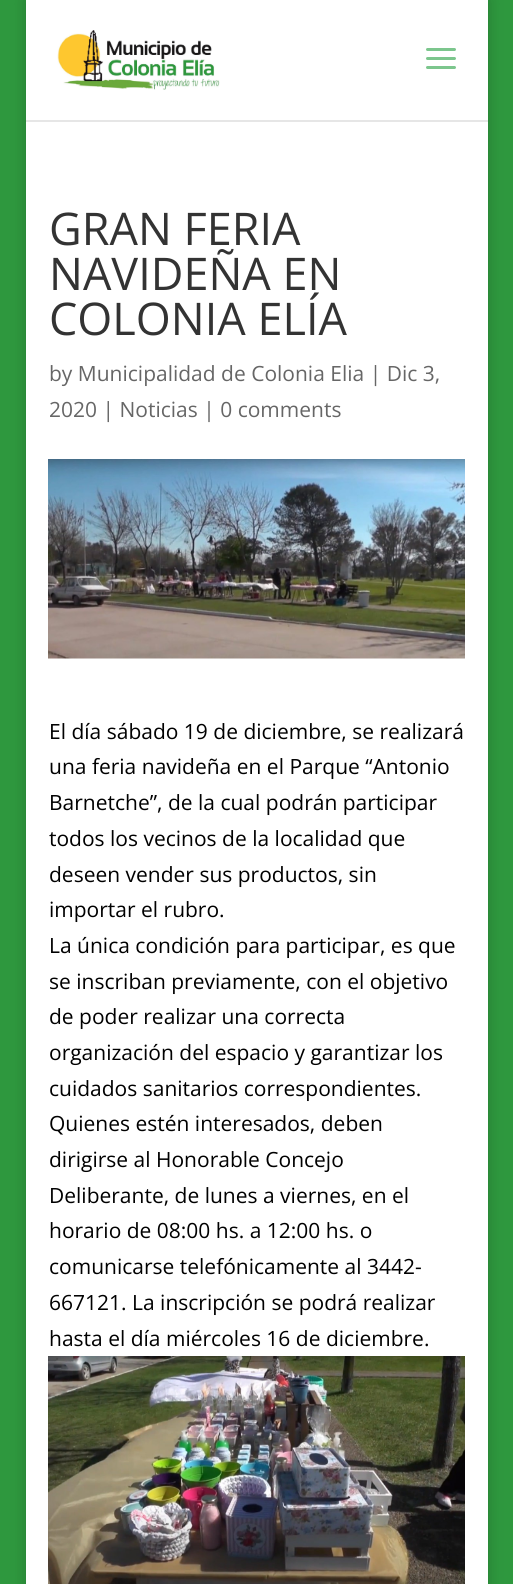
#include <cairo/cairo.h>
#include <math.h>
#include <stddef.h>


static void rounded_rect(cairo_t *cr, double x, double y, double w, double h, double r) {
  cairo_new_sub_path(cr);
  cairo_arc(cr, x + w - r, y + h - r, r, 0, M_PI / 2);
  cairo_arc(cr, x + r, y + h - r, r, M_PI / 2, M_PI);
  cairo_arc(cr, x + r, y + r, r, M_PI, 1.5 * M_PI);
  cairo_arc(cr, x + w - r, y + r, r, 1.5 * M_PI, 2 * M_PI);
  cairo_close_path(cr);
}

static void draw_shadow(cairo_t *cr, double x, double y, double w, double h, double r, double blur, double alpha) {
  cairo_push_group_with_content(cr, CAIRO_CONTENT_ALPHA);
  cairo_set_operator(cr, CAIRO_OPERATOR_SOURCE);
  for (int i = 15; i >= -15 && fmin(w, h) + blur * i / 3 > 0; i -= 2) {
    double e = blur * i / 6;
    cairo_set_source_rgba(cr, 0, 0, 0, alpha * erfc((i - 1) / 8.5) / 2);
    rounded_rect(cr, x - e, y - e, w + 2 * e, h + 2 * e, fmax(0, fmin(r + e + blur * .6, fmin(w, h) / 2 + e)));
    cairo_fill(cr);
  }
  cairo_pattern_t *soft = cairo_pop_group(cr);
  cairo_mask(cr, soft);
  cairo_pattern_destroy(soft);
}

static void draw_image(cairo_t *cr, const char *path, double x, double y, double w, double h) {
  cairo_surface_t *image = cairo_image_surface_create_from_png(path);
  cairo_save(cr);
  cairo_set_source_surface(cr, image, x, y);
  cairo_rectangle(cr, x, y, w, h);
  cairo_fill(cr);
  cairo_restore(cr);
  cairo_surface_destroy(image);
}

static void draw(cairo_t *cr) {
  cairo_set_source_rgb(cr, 46 / 255.0, 152 / 255.0, 62 / 255.0);
  cairo_paint(cr);
  cairo_set_source_rgb(cr, 0, 0, 0);
  draw_shadow(cr, 26, 0, 462, 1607, 0, 7.5, 0.2);
  cairo_set_source_rgb(cr, 230 / 255.0, 230 / 255.0, 230 / 255.0);
  cairo_new_path(cr);
  cairo_move_to(cr, 26, 120);
  cairo_line_to(cr, 26, 122);
  cairo_line_to(cr, 488, 122);
  cairo_line_to(cr, 488, 2);
  cairo_line_to(cr, 488, 120);
  cairo_close_path(cr);
  cairo_fill(cr);
  cairo_set_source_rgb(cr, 1, 1, 1);
  cairo_rectangle(cr, 26, 0, 462, 120);
  cairo_fill(cr);
  draw_image(cr, "images/1.png", 57, 30, 163, 60);
  draw_image(cr, "images/2.png", 426, 48, 30, 21);
  cairo_rectangle(cr, 26, 122, 462, 1462);
  cairo_fill(cr);
  draw_image(cr, "images/3.png", 48, 459, 417, 200);
  draw_image(cr, "images/4.png", 48, 1356, 417, 228);
  cairo_select_font_face(cr, "Open Sans", CAIRO_FONT_SLANT_NORMAL, CAIRO_FONT_WEIGHT_NORMAL);
  cairo_set_font_size(cr, 45);
  cairo_set_source_rgb(cr, 51 / 255.0, 51 / 255.0, 51 / 255.0);
  cairo_move_to(cr, 49, 245);
  cairo_show_text(cr, "GRAN FERIA");
  cairo_move_to(cr, 49, 290);
  cairo_show_text(cr, "NAVIDEÑA EN");
  cairo_move_to(cr, 49, 335);
  cairo_show_text(cr, "COLONIA ELÍA");
  cairo_set_font_size(cr, 21);
  cairo_set_source_rgb(cr, 102 / 255.0, 102 / 255.0, 102 / 255.0);
  cairo_move_to(cr, 49, 381);
  cairo_show_text(cr, "by Municipalidad de Colonia Elia | Dic 3,");
  cairo_move_to(cr, 49, 417);
  cairo_show_text(cr, "2020 | Noticias | 0 comments");
  cairo_set_source_rgb(cr, 0, 0, 0);
  cairo_move_to(cr, 49, 739);
  cairo_show_text(cr, "El día sábado 19 de diciembre, se realizará");
  cairo_move_to(cr, 49, 774);
  cairo_show_text(cr, "una feria navideña en el Parque “Antonio");
  cairo_move_to(cr, 49, 810);
  cairo_show_text(cr, "Barnetche”, de la cual podrán participar");
  cairo_move_to(cr, 49, 846);
  cairo_show_text(cr, "todos los vecinos de la localidad que");
  cairo_move_to(cr, 49, 882);
  cairo_show_text(cr, "deseen vender sus productos, sin");
  cairo_move_to(cr, 49, 917);
  cairo_show_text(cr, "importar el rubro.");
  cairo_move_to(cr, 49, 953);
  cairo_show_text(cr, "La única condición para participar, es que");
  cairo_move_to(cr, 49, 989);
  cairo_show_text(cr, "se inscriban previamente, con el objetivo");
  cairo_move_to(cr, 49, 1024);
  cairo_show_text(cr, "de poder realizar una correcta");
  cairo_move_to(cr, 49, 1060);
  cairo_show_text(cr, "organización del espacio y garantizar los");
  cairo_move_to(cr, 49, 1096);
  cairo_show_text(cr, "cuidados sanitarios correspondientes.");
  cairo_move_to(cr, 49, 1131);
  cairo_show_text(cr, "Quienes estén interesados, deben");
  cairo_move_to(cr, 49, 1167);
  cairo_show_text(cr, "dirigirse al Honorable Concejo");
  cairo_move_to(cr, 49, 1203);
  cairo_show_text(cr, "Deliberante, de lunes a viernes, en el");
  cairo_move_to(cr, 49, 1238);
  cairo_show_text(cr, "horario de 08:00 hs. a 12:00 hs. o");
  cairo_move_to(cr, 49, 1274);
  cairo_show_text(cr, "comunicarse telefónicamente al 3442-");
  cairo_move_to(cr, 49, 1310);
  cairo_show_text(cr, "667121. La inscripción se podrá realizar");
  cairo_move_to(cr, 49, 1346);
  cairo_show_text(cr, "hasta el día miércoles 16 de diciembre.");
}

int main(void) {
  cairo_surface_t *surface = cairo_image_surface_create(CAIRO_FORMAT_RGB24, 513, 1584);
  cairo_t *cr = cairo_create(surface);
  cairo_font_options_t *options = cairo_font_options_create();
  cairo_font_options_set_hint_metrics(options, CAIRO_HINT_METRICS_OFF);
  cairo_font_options_set_hint_style(options, CAIRO_HINT_STYLE_NONE);
  cairo_set_font_options(cr, options);
  cairo_set_miter_limit(cr, 4);
  draw(cr);
  cairo_surface_write_to_png(surface, "out.png");
  cairo_font_options_destroy(options);
  cairo_destroy(cr);
  cairo_surface_destroy(surface);
  return 0;
}
